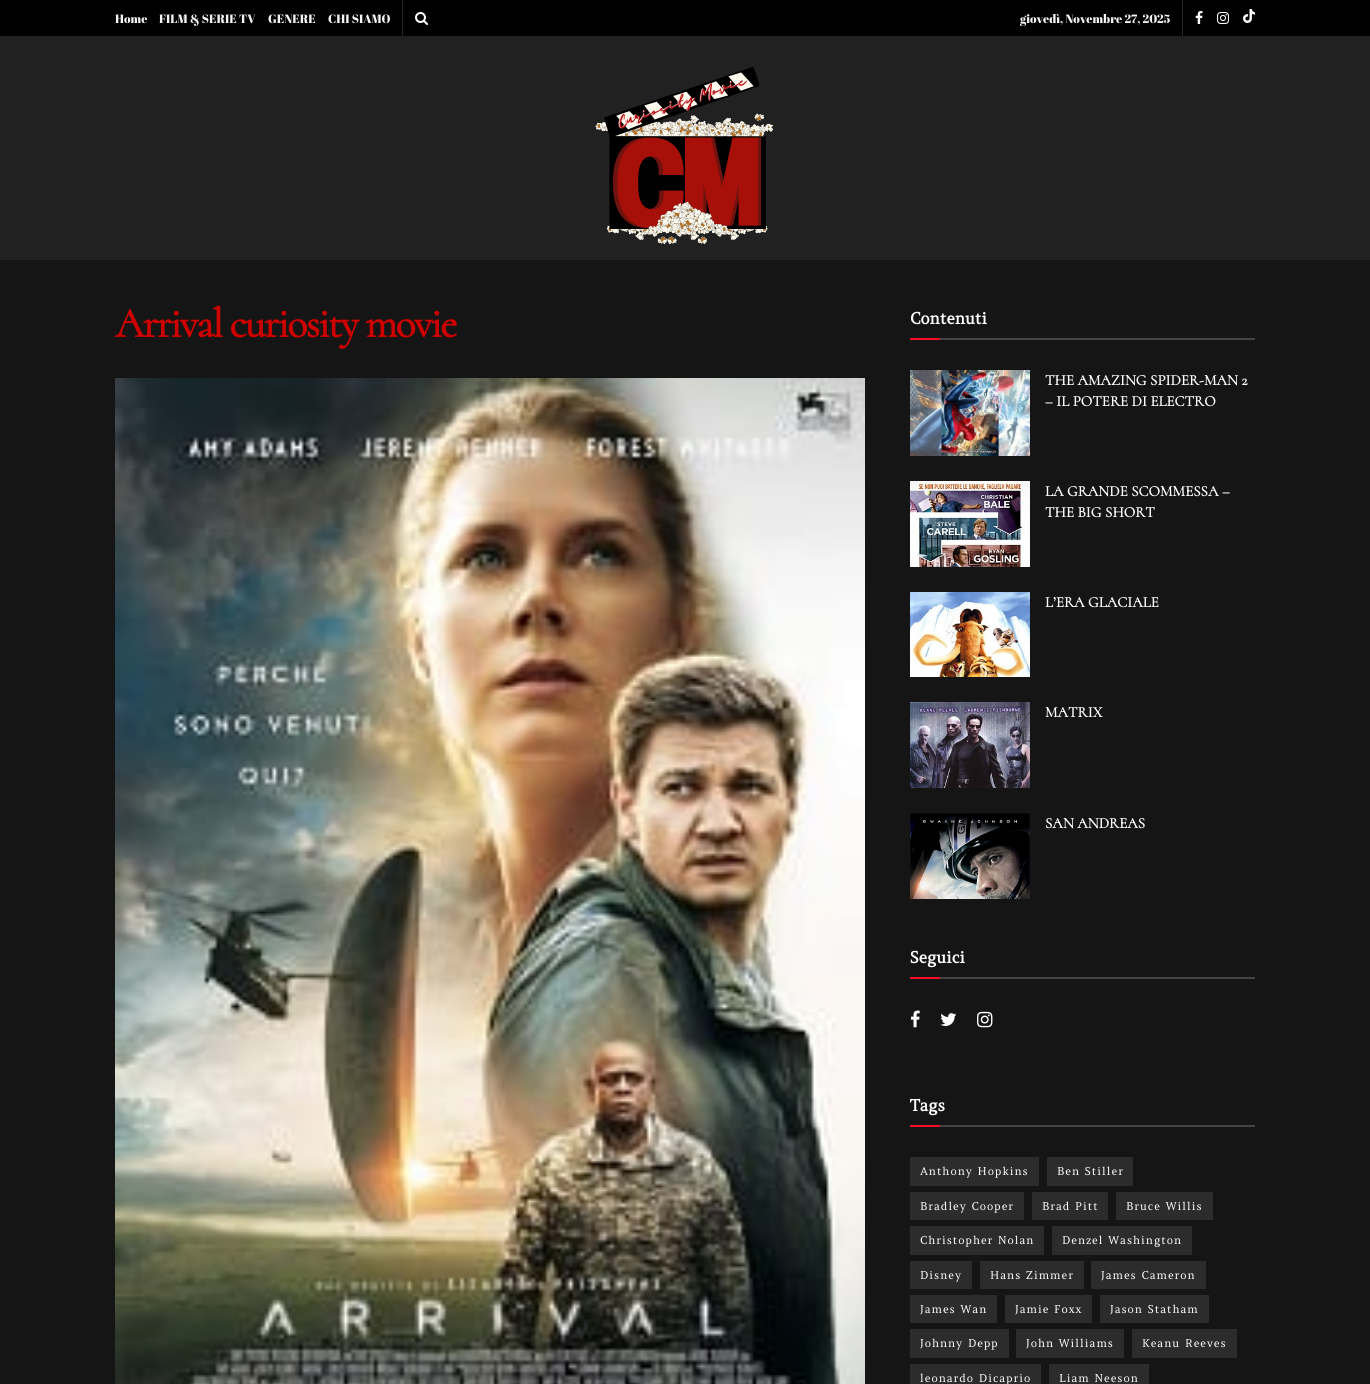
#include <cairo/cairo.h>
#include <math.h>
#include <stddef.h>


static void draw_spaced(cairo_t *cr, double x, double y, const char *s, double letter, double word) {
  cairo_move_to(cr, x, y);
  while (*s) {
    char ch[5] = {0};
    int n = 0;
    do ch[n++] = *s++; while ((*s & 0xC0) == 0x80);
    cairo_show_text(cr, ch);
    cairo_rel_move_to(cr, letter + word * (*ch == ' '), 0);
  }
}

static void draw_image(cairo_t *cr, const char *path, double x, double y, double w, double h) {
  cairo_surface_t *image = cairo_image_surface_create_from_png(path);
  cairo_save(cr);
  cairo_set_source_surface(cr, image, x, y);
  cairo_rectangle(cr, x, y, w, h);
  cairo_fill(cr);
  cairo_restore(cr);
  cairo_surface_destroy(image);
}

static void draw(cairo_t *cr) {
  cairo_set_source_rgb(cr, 21 / 255.0, 21 / 255.0, 21 / 255.0);
  cairo_paint(cr);
  cairo_set_source_rgb(cr, 0, 0, 0);
  cairo_rectangle(cr, 0, 0, 1370, 36);
  cairo_fill(cr);
  cairo_set_source_rgb(cr, 38 / 255.0, 38 / 255.0, 38 / 255.0);
  cairo_rectangle(cr, 402, 0, 1, 36);
  cairo_fill(cr);
  draw_image(cr, "images/1.png", 415, 12, 13, 13);
  cairo_rectangle(cr, 1182, 0, 1, 36);
  cairo_fill(cr);
  draw_image(cr, "images/2.png", 1195, 11, 8, 13);
  draw_image(cr, "images/3.png", 1217, 12, 12, 12);
  draw_image(cr, "images/4.png", 1243, 9, 12, 14);
  cairo_set_source_rgb(cr, 33 / 255.0, 33 / 255.0, 33 / 255.0);
  cairo_rectangle(cr, 0, 36, 1370, 224);
  cairo_fill(cr);
  draw_image(cr, "images/5.png", 595, 67, 179, 178);
  draw_image(cr, "images/6.png", 115, 378, 750, 1006);
  cairo_set_source_rgb(cr, 68 / 255.0, 68 / 255.0, 68 / 255.0);
  cairo_rectangle(cr, 940, 338, 315, 2);
  cairo_fill(cr);
  cairo_set_source_rgb(cr, 247 / 255.0, 13 / 255.0, 40 / 255.0);
  cairo_rectangle(cr, 910, 338, 30, 2);
  cairo_fill(cr);
  draw_image(cr, "images/7.png", 910, 370, 120, 86);
  draw_image(cr, "images/8.png", 910, 481, 120, 86);
  draw_image(cr, "images/9.png", 910, 592, 120, 85);
  draw_image(cr, "images/10.png", 910, 702, 120, 86);
  draw_image(cr, "images/11.png", 910, 813, 120, 86);
  cairo_set_source_rgb(cr, 68 / 255.0, 68 / 255.0, 68 / 255.0);
  cairo_rectangle(cr, 940, 977, 315, 2);
  cairo_fill(cr);
  cairo_set_source_rgb(cr, 247 / 255.0, 13 / 255.0, 40 / 255.0);
  cairo_rectangle(cr, 910, 977, 30, 2);
  cairo_fill(cr);
  draw_image(cr, "images/12.png", 910, 1010, 10, 18);
  draw_image(cr, "images/13.png", 940, 1013, 17, 13);
  draw_image(cr, "images/14.png", 977, 1011, 16, 17);
  cairo_set_source_rgb(cr, 68 / 255.0, 68 / 255.0, 68 / 255.0);
  cairo_rectangle(cr, 940, 1125, 315, 2);
  cairo_fill(cr);
  cairo_set_source_rgb(cr, 247 / 255.0, 13 / 255.0, 40 / 255.0);
  cairo_rectangle(cr, 910, 1125, 30, 2);
  cairo_fill(cr);
  cairo_set_source_rgb(cr, 44 / 255.0, 44 / 255.0, 44 / 255.0);
  cairo_rectangle(cr, 910, 1157, 129, 29);
  cairo_fill(cr);
  cairo_rectangle(cr, 1047, 1157, 86, 29);
  cairo_fill(cr);
  cairo_rectangle(cr, 910, 1192, 114, 28);
  cairo_fill(cr);
  cairo_rectangle(cr, 1032, 1192, 76, 28);
  cairo_fill(cr);
  cairo_rectangle(cr, 1116, 1192, 97, 28);
  cairo_fill(cr);
  cairo_rectangle(cr, 910, 1226, 134, 29);
  cairo_fill(cr);
  cairo_rectangle(cr, 1052, 1226, 140, 29);
  cairo_fill(cr);
  cairo_rectangle(cr, 910, 1261, 62, 28);
  cairo_fill(cr);
  cairo_rectangle(cr, 980, 1261, 104, 28);
  cairo_fill(cr);
  cairo_rectangle(cr, 1091, 1261, 115, 28);
  cairo_fill(cr);
  cairo_rectangle(cr, 910, 1295, 87, 28);
  cairo_fill(cr);
  cairo_rectangle(cr, 1005, 1295, 87, 28);
  cairo_fill(cr);
  cairo_rectangle(cr, 1100, 1295, 109, 28);
  cairo_fill(cr);
  cairo_rectangle(cr, 910, 1329, 99, 29);
  cairo_fill(cr);
  cairo_rectangle(cr, 1016, 1329, 108, 29);
  cairo_fill(cr);
  cairo_rectangle(cr, 1132, 1329, 105, 29);
  cairo_fill(cr);
  cairo_rectangle(cr, 910, 1364, 131, 20);
  cairo_fill(cr);
  cairo_rectangle(cr, 1049, 1364, 100, 20);
  cairo_fill(cr);
  cairo_select_font_face(cr, "Abril Fatface", CAIRO_FONT_SLANT_NORMAL, CAIRO_FONT_WEIGHT_NORMAL);
  cairo_set_font_size(cr, 12);
  cairo_set_source_rgb(cr, 245 / 255.0, 245 / 255.0, 245 / 255.0);
  cairo_move_to(cr, 115, 23);
  cairo_show_text(cr, "Home");
  cairo_move_to(cr, 159, 23);
  cairo_show_text(cr, "FILM & SERIE TV");
  cairo_move_to(cr, 268, 23);
  cairo_show_text(cr, "GENERE");
  cairo_move_to(cr, 328, 23);
  cairo_show_text(cr, "CHI SIAMO");
  cairo_move_to(cr, 1020, 23);
  cairo_show_text(cr, "giovedì, Novembre 27, 2025");
  cairo_select_font_face(cr, "Cormorant", CAIRO_FONT_SLANT_NORMAL, CAIRO_FONT_WEIGHT_BOLD);
  cairo_set_font_size(cr, 42);
  cairo_set_source_rgb(cr, 207 / 255.0, 0, 0);
  draw_spaced(cr, 115, 337, "Arrival curiosity movie", -1.7, 0);
  cairo_select_font_face(cr, "Amethysta", CAIRO_FONT_SLANT_NORMAL, CAIRO_FONT_WEIGHT_BOLD);
  cairo_set_font_size(cr, 16);
  cairo_set_source_rgb(cr, 1, 1, 1);
  cairo_move_to(cr, 910, 324);
  cairo_show_text(cr, "Contenuti");
  cairo_select_font_face(cr, "Cormorant", CAIRO_FONT_SLANT_NORMAL, CAIRO_FONT_WEIGHT_BOLD);
  cairo_set_font_size(cr, 15);
  cairo_move_to(cr, 1045, 385);
  cairo_show_text(cr, "THE AMAZING SPIDER-MAN 2");
  cairo_move_to(cr, 1045, 406);
  cairo_show_text(cr, "– IL POTERE DI ELECTRO");
  cairo_move_to(cr, 1045, 496);
  cairo_show_text(cr, "LA GRANDE SCOMMESSA –");
  cairo_move_to(cr, 1045, 517);
  cairo_show_text(cr, "THE BIG SHORT");
  cairo_move_to(cr, 1045, 607);
  cairo_show_text(cr, "L’ERA GLACIALE");
  cairo_move_to(cr, 1045, 717);
  cairo_show_text(cr, "MATRIX");
  cairo_move_to(cr, 1045, 828);
  cairo_show_text(cr, "SAN ANDREAS");
  cairo_select_font_face(cr, "Amethysta", CAIRO_FONT_SLANT_NORMAL, CAIRO_FONT_WEIGHT_BOLD);
  cairo_set_font_size(cr, 16);
  cairo_move_to(cr, 910, 963);
  cairo_show_text(cr, "Seguici");
  cairo_move_to(cr, 910, 1111);
  cairo_show_text(cr, "Tags");
  cairo_select_font_face(cr, "Amethysta", CAIRO_FONT_SLANT_NORMAL, CAIRO_FONT_WEIGHT_NORMAL);
  cairo_set_font_size(cr, 11);
  draw_spaced(cr, 920, 1175, "Anthony Hopkins", 1, 0);
  draw_spaced(cr, 1057, 1175, "Ben Stiller", 1, 0);
  draw_spaced(cr, 920, 1210, "Bradley Cooper", 1, 0);
  draw_spaced(cr, 1042, 1210, "Brad Pitt", 1, 0);
  draw_spaced(cr, 1126, 1210, "Bruce Willis", 1, 0);
  draw_spaced(cr, 920, 1244, "Christopher Nolan", 1, 0);
  draw_spaced(cr, 1062, 1244, "Denzel Washington", 1, 0);
  draw_spaced(cr, 920, 1279, "Disney", 1, 0);
  draw_spaced(cr, 990, 1279, "Hans Zimmer", 1, 0);
  draw_spaced(cr, 1101, 1279, "James Cameron", 1, 0);
  draw_spaced(cr, 920, 1313, "James Wan", 1, 0);
  draw_spaced(cr, 1015, 1313, "Jamie Foxx", 1, 0);
  draw_spaced(cr, 1110, 1313, "Jason Statham", 1, 0);
  draw_spaced(cr, 920, 1347, "Johnny Depp", 1, 0);
  draw_spaced(cr, 1026, 1347, "John Williams", 1, 0);
  draw_spaced(cr, 1142, 1347, "Keanu Reeves", 1, 0);
  draw_spaced(cr, 920, 1382, "leonardo Dicaprio", 1, 0);
  draw_spaced(cr, 1059, 1382, "Liam Neeson", 1, 0);
}

int main(void) {
  cairo_surface_t *surface = cairo_image_surface_create(CAIRO_FORMAT_RGB24, 1370, 1384);
  cairo_t *cr = cairo_create(surface);
  cairo_font_options_t *options = cairo_font_options_create();
  cairo_font_options_set_hint_metrics(options, CAIRO_HINT_METRICS_OFF);
  cairo_font_options_set_hint_style(options, CAIRO_HINT_STYLE_NONE);
  cairo_set_font_options(cr, options);
  cairo_set_miter_limit(cr, 4);
  draw(cr);
  cairo_surface_write_to_png(surface, "out.png");
  cairo_font_options_destroy(options);
  cairo_destroy(cr);
  cairo_surface_destroy(surface);
  return 0;
}
